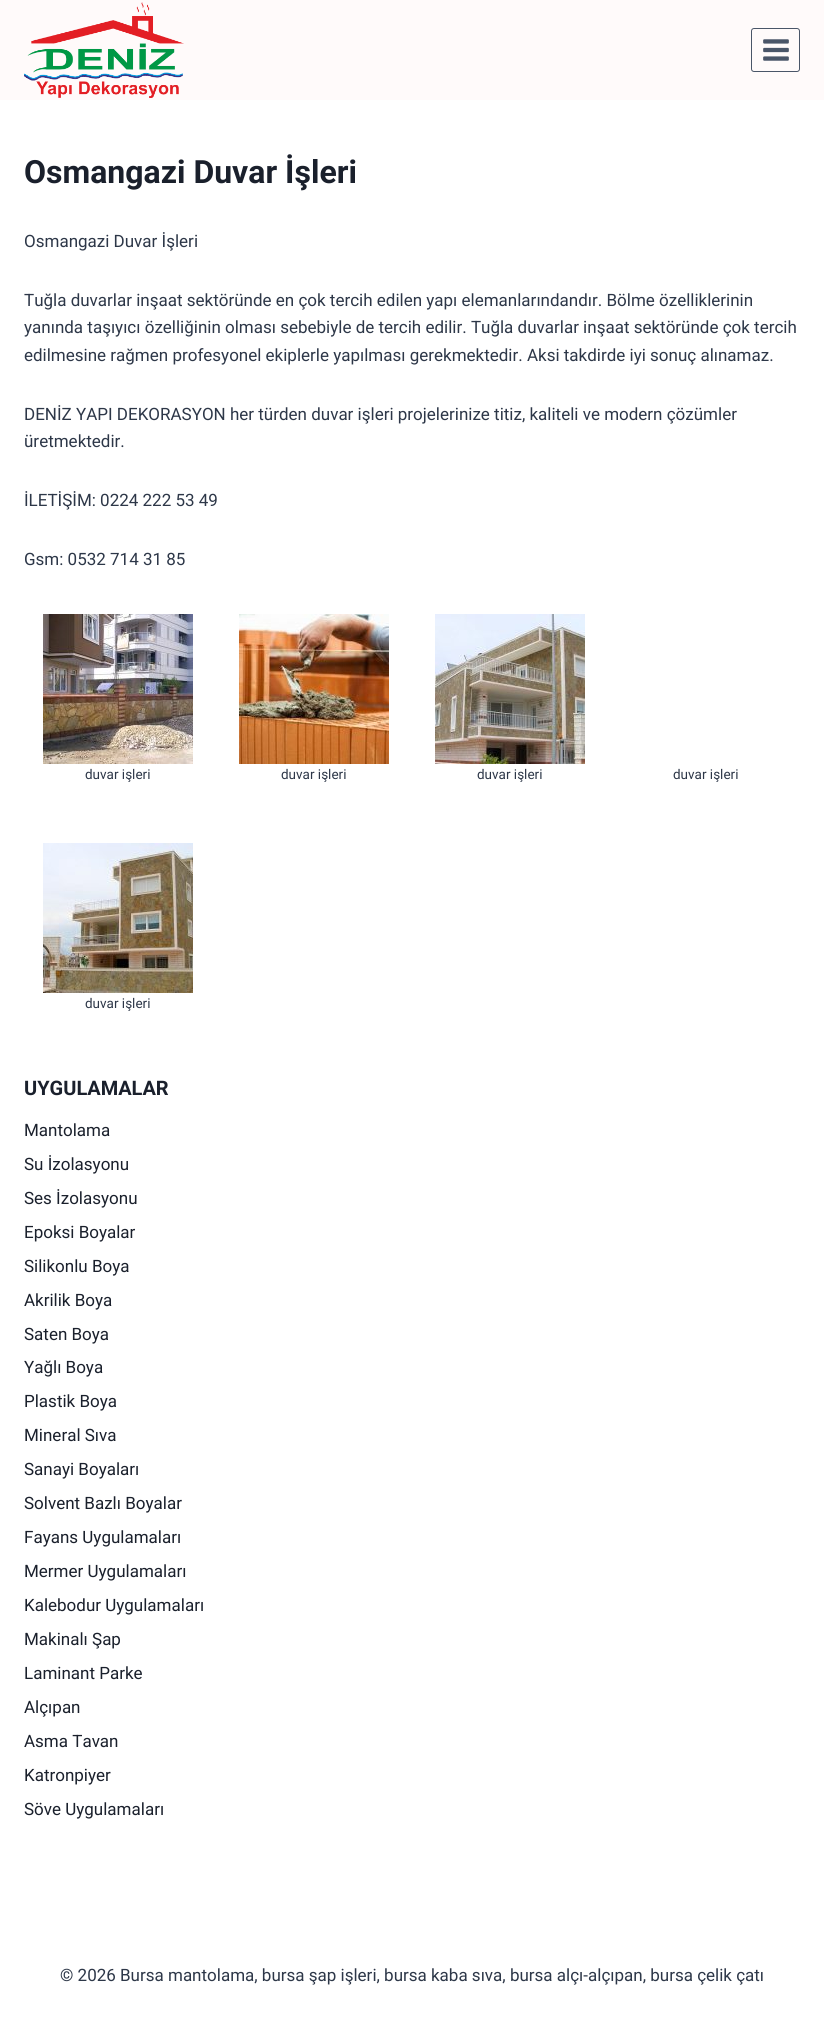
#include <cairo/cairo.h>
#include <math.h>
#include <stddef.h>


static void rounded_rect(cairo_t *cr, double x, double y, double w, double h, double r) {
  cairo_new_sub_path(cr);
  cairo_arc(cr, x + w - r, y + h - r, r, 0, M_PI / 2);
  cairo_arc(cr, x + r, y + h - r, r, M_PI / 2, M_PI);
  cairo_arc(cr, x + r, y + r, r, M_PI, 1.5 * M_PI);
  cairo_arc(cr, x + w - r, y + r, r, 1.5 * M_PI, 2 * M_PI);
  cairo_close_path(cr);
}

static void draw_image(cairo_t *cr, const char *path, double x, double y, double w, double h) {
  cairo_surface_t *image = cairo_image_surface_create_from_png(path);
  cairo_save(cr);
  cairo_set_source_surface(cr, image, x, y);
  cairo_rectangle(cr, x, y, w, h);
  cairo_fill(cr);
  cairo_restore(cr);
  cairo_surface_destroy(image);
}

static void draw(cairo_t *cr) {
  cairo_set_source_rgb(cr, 1, 1, 1);
  cairo_paint(cr);
  cairo_set_source_rgb(cr, 1, 250 / 255.0, 250 / 255.0);
  cairo_rectangle(cr, 0, 0, 824, 100);
  cairo_fill(cr);
  draw_image(cr, "images/1.png", 24, 2, 160, 96);
  rounded_rect(cr, 751.5, 28.5, 48, 43, 2.5);
  cairo_set_source_rgb(cr, 74 / 255.0, 85 / 255.0, 104 / 255.0);
  cairo_set_line_width(cr, 1);
  cairo_stroke(cr);
  draw_image(cr, "images/2.png", 763, 39, 26, 22);
  draw_image(cr, "images/3.png", 43, 614, 150, 150);
  draw_image(cr, "images/4.png", 239, 614, 150, 150);
  draw_image(cr, "images/5.png", 435, 614, 150, 150);
  draw_image(cr, "images/6.png", 43, 843, 150, 150);
  cairo_select_font_face(cr, "Roboto", CAIRO_FONT_SLANT_NORMAL, CAIRO_FONT_WEIGHT_BOLD);
  cairo_set_font_size(cr, 32);
  cairo_set_source_rgb(cr, 26 / 255.0, 32 / 255.0, 44 / 255.0);
  cairo_move_to(cr, 24, 183);
  cairo_show_text(cr, "Osmangazi Duvar İşleri");
  cairo_select_font_face(cr, "Roboto", CAIRO_FONT_SLANT_NORMAL, CAIRO_FONT_WEIGHT_NORMAL);
  cairo_set_font_size(cr, 17);
  cairo_set_source_rgb(cr, 45 / 255.0, 55 / 255.0, 72 / 255.0);
  cairo_move_to(cr, 24, 247);
  cairo_show_text(cr, "Osmangazi Duvar İşleri");
  cairo_move_to(cr, 24, 306);
  cairo_show_text(cr, "Tuğla duvarlar inşaat sektöründe en çok tercih edilen yapı elemanlarındandır. Bölme özelliklerinin");
  cairo_move_to(cr, 24, 333);
  cairo_show_text(cr, "yanında taşıyıcı özelliğinin olması sebebiyle de tercih edilir. Tuğla duvarlar inşaat sektöründe çok tercih");
  cairo_move_to(cr, 24, 361);
  cairo_show_text(cr, "edilmesine rağmen profesyonel ekiplerle yapılması gerekmektedir. Aksi takdirde iyi sonuç alınamaz.");
  cairo_move_to(cr, 24, 420);
  cairo_show_text(cr, "DENİZ YAPI DEKORASYON her türden duvar işleri projelerinize titiz, kaliteli ve modern çözümler");
  cairo_move_to(cr, 24, 447);
  cairo_show_text(cr, "üretmektedir.");
  cairo_move_to(cr, 24, 506);
  cairo_show_text(cr, "İLETİŞİM: 0224 222 53 49");
  cairo_move_to(cr, 24, 565);
  cairo_show_text(cr, "Gsm: 0532 714 31 85");
  cairo_set_font_size(cr, 13.5);
  cairo_move_to(cr, 85, 779);
  cairo_show_text(cr, "duvar işleri");
  cairo_move_to(cr, 281, 779);
  cairo_show_text(cr, "duvar işleri");
  cairo_move_to(cr, 477, 779);
  cairo_show_text(cr, "duvar işleri");
  cairo_move_to(cr, 673, 779);
  cairo_show_text(cr, "duvar işleri");
  cairo_move_to(cr, 85, 1008);
  cairo_show_text(cr, "duvar işleri");
  cairo_select_font_face(cr, "Roboto", CAIRO_FONT_SLANT_NORMAL, CAIRO_FONT_WEIGHT_BOLD);
  cairo_set_font_size(cr, 20);
  cairo_set_source_rgb(cr, 26 / 255.0, 32 / 255.0, 44 / 255.0);
  cairo_move_to(cr, 24, 1095);
  cairo_show_text(cr, "UYGULAMALAR");
  cairo_select_font_face(cr, "Roboto", CAIRO_FONT_SLANT_NORMAL, CAIRO_FONT_WEIGHT_NORMAL);
  cairo_set_font_size(cr, 17);
  cairo_move_to(cr, 24, 1136);
  cairo_show_text(cr, "Mantolama");
  cairo_move_to(cr, 24, 1170);
  cairo_show_text(cr, "Su İzolasyonu");
  cairo_move_to(cr, 24, 1204);
  cairo_show_text(cr, "Ses İzolasyonu");
  cairo_move_to(cr, 24, 1238);
  cairo_show_text(cr, "Epoksi Boyalar");
  cairo_move_to(cr, 24, 1272);
  cairo_show_text(cr, "Silikonlu Boya");
  cairo_move_to(cr, 24, 1306);
  cairo_show_text(cr, "Akrilik Boya");
  cairo_move_to(cr, 24, 1340);
  cairo_show_text(cr, "Saten Boya");
  cairo_move_to(cr, 24, 1373);
  cairo_show_text(cr, "Yağlı Boya");
  cairo_move_to(cr, 24, 1407);
  cairo_show_text(cr, "Plastik Boya");
  cairo_move_to(cr, 24, 1441);
  cairo_show_text(cr, "Mineral Sıva");
  cairo_move_to(cr, 24, 1475);
  cairo_show_text(cr, "Sanayi Boyaları");
  cairo_move_to(cr, 24, 1509);
  cairo_show_text(cr, "Solvent Bazlı Boyalar");
  cairo_move_to(cr, 24, 1543);
  cairo_show_text(cr, "Fayans Uygulamaları");
  cairo_move_to(cr, 24, 1577);
  cairo_show_text(cr, "Mermer Uygulamaları");
  cairo_move_to(cr, 24, 1611);
  cairo_show_text(cr, "Kalebodur Uygulamaları");
  cairo_move_to(cr, 24, 1645);
  cairo_show_text(cr, "Makinalı Şap");
  cairo_move_to(cr, 24, 1679);
  cairo_show_text(cr, "Laminant Parke");
  cairo_move_to(cr, 24, 1713);
  cairo_show_text(cr, "Alçıpan");
  cairo_move_to(cr, 24, 1747);
  cairo_show_text(cr, "Asma Tavan");
  cairo_move_to(cr, 24, 1781);
  cairo_show_text(cr, "Katronpiyer");
  cairo_move_to(cr, 24, 1815);
  cairo_show_text(cr, "Söve Uygulamaları");
  cairo_set_source_rgb(cr, 45 / 255.0, 55 / 255.0, 72 / 255.0);
  cairo_move_to(cr, 60, 1981);
  cairo_show_text(cr, "© 2026 Bursa mantolama, bursa şap işleri, bursa kaba sıva, bursa alçı-alçıpan, bursa çelik çatı");
}

int main(void) {
  cairo_surface_t *surface = cairo_image_surface_create(CAIRO_FORMAT_RGB24, 824, 2036);
  cairo_t *cr = cairo_create(surface);
  cairo_font_options_t *options = cairo_font_options_create();
  cairo_font_options_set_hint_metrics(options, CAIRO_HINT_METRICS_OFF);
  cairo_font_options_set_hint_style(options, CAIRO_HINT_STYLE_NONE);
  cairo_set_font_options(cr, options);
  cairo_set_miter_limit(cr, 4);
  draw(cr);
  cairo_surface_write_to_png(surface, "out.png");
  cairo_font_options_destroy(options);
  cairo_destroy(cr);
  cairo_surface_destroy(surface);
  return 0;
}
